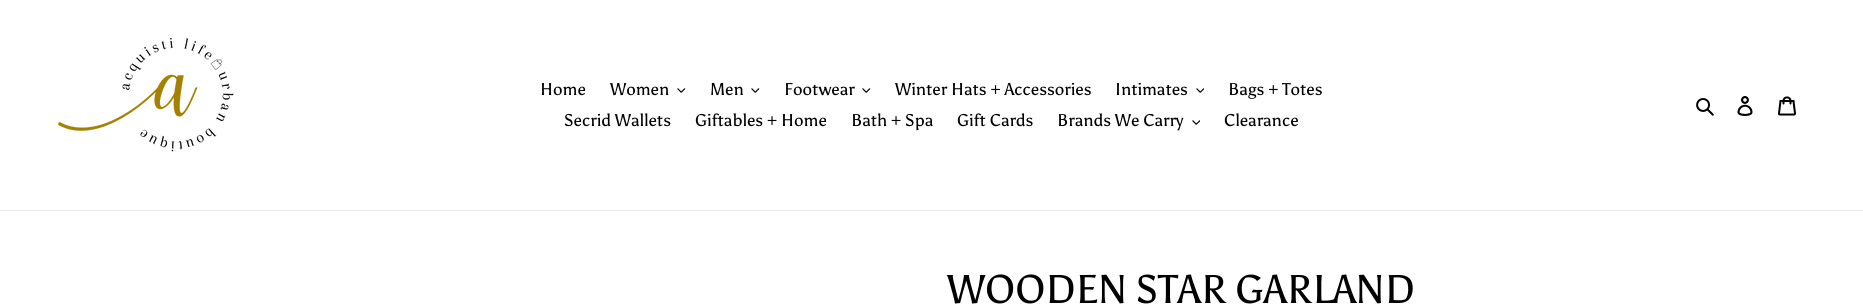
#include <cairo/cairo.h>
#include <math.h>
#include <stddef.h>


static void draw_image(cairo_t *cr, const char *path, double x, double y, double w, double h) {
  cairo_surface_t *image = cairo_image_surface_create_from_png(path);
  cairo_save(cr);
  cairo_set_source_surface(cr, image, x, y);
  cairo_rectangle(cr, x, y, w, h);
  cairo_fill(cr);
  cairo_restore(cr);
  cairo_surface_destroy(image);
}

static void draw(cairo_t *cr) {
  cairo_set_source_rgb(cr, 1, 1, 1);
  cairo_paint(cr);
  cairo_set_source_rgb(cr, 235 / 255.0, 235 / 255.0, 235 / 255.0);
  cairo_rectangle(cr, 0, 210, 1863, 1);
  cairo_fill(cr);
  draw_image(cr, "images/1.png", 58, 38, 176, 114);
  draw_image(cr, "images/2.png", 677, 88, 9, 5);
  draw_image(cr, "images/2.png", 751, 88, 9, 5);
  draw_image(cr, "images/2.png", 862, 88, 9, 5);
  draw_image(cr, "images/3.png", 1196, 88, 8, 5);
  draw_image(cr, "images/3.png", 1192, 120, 8, 5);
  draw_image(cr, "images/4.png", 1696, 98, 18, 18);
  draw_image(cr, "images/5.png", 1737, 96, 16, 20);
  draw_image(cr, "images/6.png", 1778, 96, 18, 20);
  cairo_select_font_face(cr, "Asul", CAIRO_FONT_SLANT_NORMAL, CAIRO_FONT_WEIGHT_NORMAL);
  cairo_set_font_size(cr, 17);
  cairo_set_source_rgb(cr, 0, 0, 0);
  cairo_move_to(cr, 540, 95);
  cairo_show_text(cr, "Home");
  cairo_move_to(cr, 610, 95);
  cairo_show_text(cr, "Women");
  cairo_move_to(cr, 710, 95);
  cairo_show_text(cr, "Men");
  cairo_move_to(cr, 784, 95);
  cairo_show_text(cr, "Footwear");
  cairo_move_to(cr, 895, 95);
  cairo_show_text(cr, "Winter Hats + Accessories");
  cairo_move_to(cr, 1115, 95);
  cairo_show_text(cr, "Intimates");
  cairo_move_to(cr, 1228, 95);
  cairo_show_text(cr, "Bags + Totes");
  cairo_move_to(cr, 564, 126);
  cairo_show_text(cr, "Secrid Wallets");
  cairo_move_to(cr, 695, 126);
  cairo_show_text(cr, "Giftables + Home");
  cairo_move_to(cr, 851, 126);
  cairo_show_text(cr, "Bath + Spa");
  cairo_move_to(cr, 957, 126);
  cairo_show_text(cr, "Gift Cards");
  cairo_move_to(cr, 1057, 126);
  cairo_show_text(cr, "Brands We Carry");
  cairo_move_to(cr, 1224, 126);
  cairo_show_text(cr, "Clearance");
  cairo_set_font_size(cr, 40);
  cairo_move_to(cr, 947, 303);
  cairo_show_text(cr, "WOODEN STAR GARLAND");
}

int main(void) {
  cairo_surface_t *surface = cairo_image_surface_create(CAIRO_FORMAT_RGB24, 1863, 305);
  cairo_t *cr = cairo_create(surface);
  cairo_font_options_t *options = cairo_font_options_create();
  cairo_font_options_set_hint_metrics(options, CAIRO_HINT_METRICS_OFF);
  cairo_font_options_set_hint_style(options, CAIRO_HINT_STYLE_NONE);
  cairo_set_font_options(cr, options);
  cairo_set_miter_limit(cr, 4);
  draw(cr);
  cairo_surface_write_to_png(surface, "out.png");
  cairo_font_options_destroy(options);
  cairo_destroy(cr);
  cairo_surface_destroy(surface);
  return 0;
}
